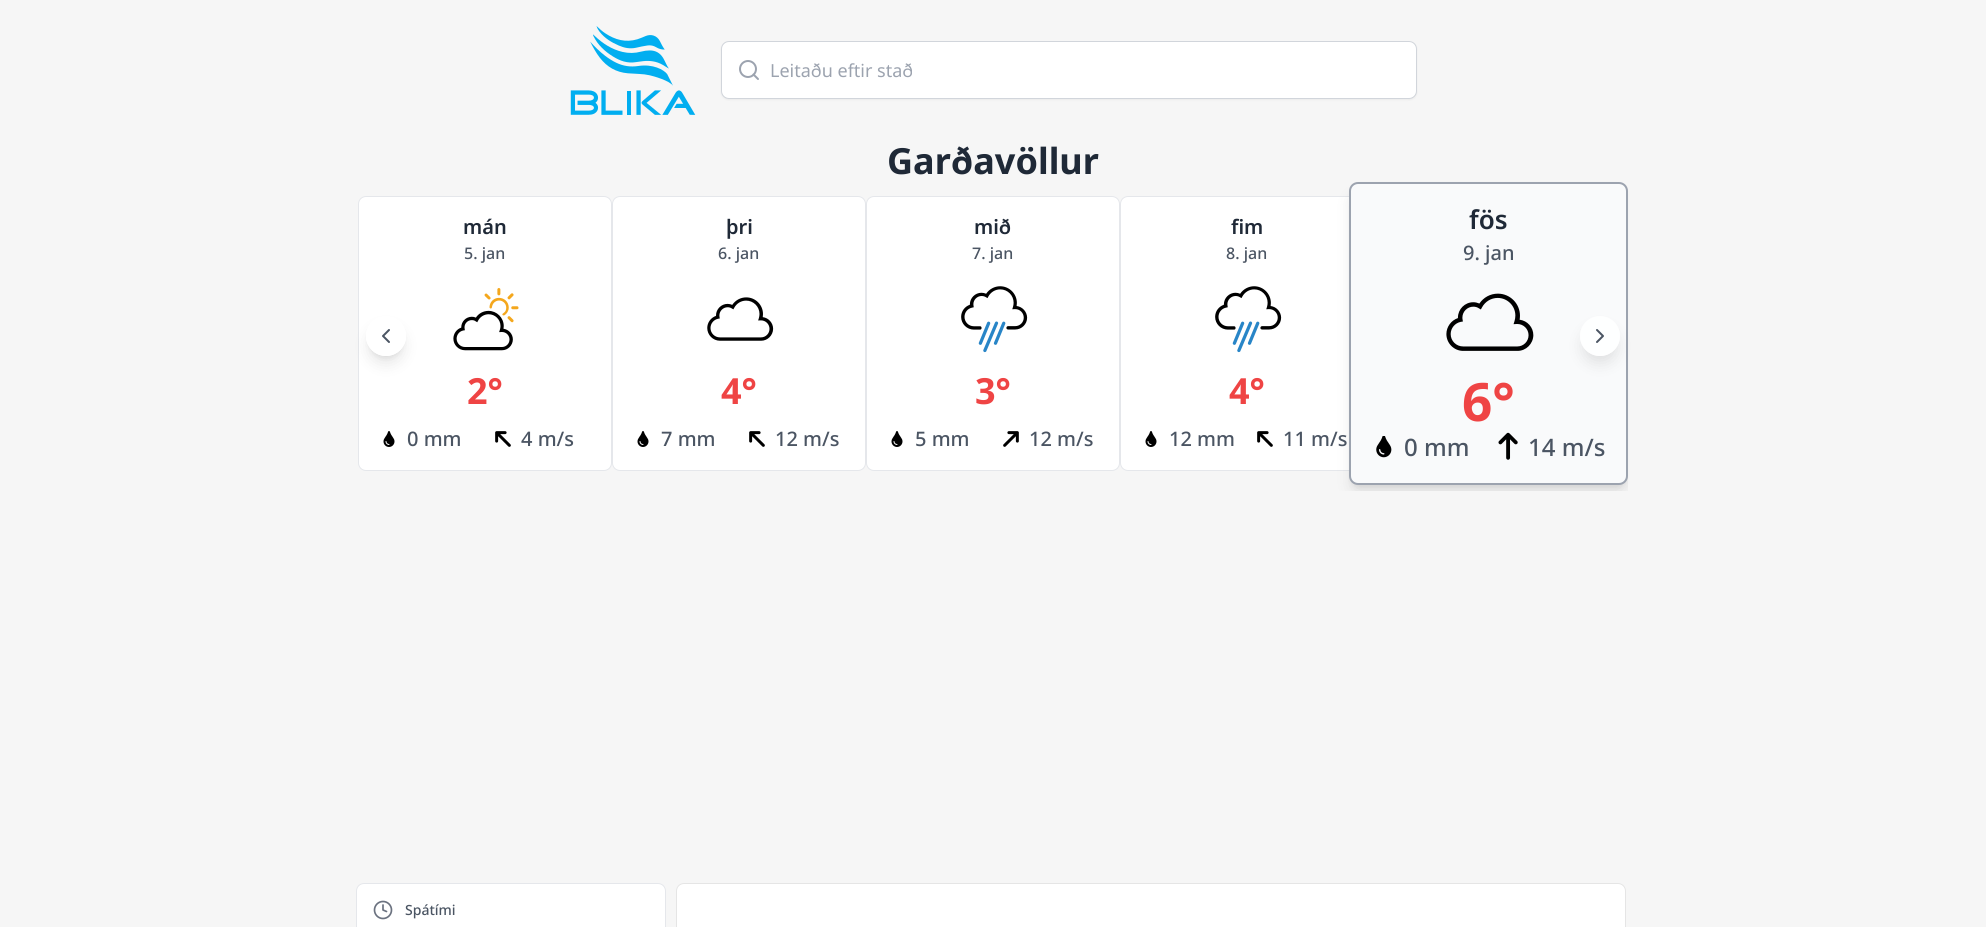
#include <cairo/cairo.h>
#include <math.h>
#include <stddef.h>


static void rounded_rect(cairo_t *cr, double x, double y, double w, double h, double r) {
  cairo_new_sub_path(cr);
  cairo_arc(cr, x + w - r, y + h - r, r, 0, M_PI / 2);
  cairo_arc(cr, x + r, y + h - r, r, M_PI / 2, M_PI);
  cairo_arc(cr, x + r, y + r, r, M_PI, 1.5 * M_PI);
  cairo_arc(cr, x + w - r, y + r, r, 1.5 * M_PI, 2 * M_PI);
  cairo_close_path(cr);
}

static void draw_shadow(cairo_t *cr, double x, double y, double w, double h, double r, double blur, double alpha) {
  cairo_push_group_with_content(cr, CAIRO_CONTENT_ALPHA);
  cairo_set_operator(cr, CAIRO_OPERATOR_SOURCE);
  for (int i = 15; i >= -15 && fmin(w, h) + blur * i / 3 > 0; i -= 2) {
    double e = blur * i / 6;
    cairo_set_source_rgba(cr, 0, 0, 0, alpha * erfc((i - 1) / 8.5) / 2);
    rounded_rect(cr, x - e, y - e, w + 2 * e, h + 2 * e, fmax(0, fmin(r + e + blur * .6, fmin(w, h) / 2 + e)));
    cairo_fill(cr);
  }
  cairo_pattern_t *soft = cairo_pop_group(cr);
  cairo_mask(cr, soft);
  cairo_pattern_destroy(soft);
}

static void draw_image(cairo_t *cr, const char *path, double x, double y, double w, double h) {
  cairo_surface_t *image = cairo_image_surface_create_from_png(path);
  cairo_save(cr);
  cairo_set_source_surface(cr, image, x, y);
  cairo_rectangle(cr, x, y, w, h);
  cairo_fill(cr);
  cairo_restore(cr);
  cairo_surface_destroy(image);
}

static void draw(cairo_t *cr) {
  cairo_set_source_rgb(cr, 246 / 255.0, 246 / 255.0, 246 / 255.0);
  cairo_paint(cr);
  draw_image(cr, "images/1.png", 570, 26, 126, 89);
  cairo_set_source_rgb(cr, 0, 0, 0);
  draw_shadow(cr, 721, 42, 696, 58, 8, 1, 0.05);
  cairo_set_source_rgb(cr, 1, 1, 1);
  rounded_rect(cr, 721.5, 41.5, 695, 57, 7.5);
  cairo_fill_preserve(cr);
  cairo_set_source_rgb(cr, 209 / 255.0, 213 / 255.0, 219 / 255.0);
  cairo_set_line_width(cr, 1);
  cairo_stroke(cr);
  cairo_arc(cr, 748, 69, 8, 0, 2 * M_PI);
  cairo_set_source_rgb(cr, 156 / 255.0, 163 / 255.0, 175 / 255.0);
  cairo_set_line_width(cr, 2);
  cairo_stroke(cr);
  cairo_new_path(cr);
  cairo_move_to(cr, 758, 79);
  cairo_line_to(cr, 753.5, 74.5);
  cairo_set_line_cap(cr, CAIRO_LINE_CAP_ROUND);
  cairo_set_line_join(cr, CAIRO_LINE_JOIN_ROUND);
  cairo_stroke(cr);
  cairo_set_source_rgb(cr, 1, 1, 1);
  rounded_rect(cr, 358.5, 196.5, 253, 274, 7.5);
  cairo_fill_preserve(cr);
  cairo_set_source_rgb(cr, 229 / 255.0, 231 / 255.0, 235 / 255.0);
  cairo_set_line_width(cr, 1);
  cairo_set_line_cap(cr, CAIRO_LINE_CAP_BUTT);
  cairo_set_line_join(cr, CAIRO_LINE_JOIN_MITER);
  cairo_stroke(cr);
  cairo_save(cr);
  cairo_set_fill_rule(cr, CAIRO_FILL_RULE_EVEN_ODD);
  cairo_new_path(cr);
  cairo_move_to(cr, 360, 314);
  cairo_line_to(cr, 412, 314);
  cairo_line_to(cr, 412, 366);
  cairo_line_to(cr, 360, 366);
  cairo_close_path(cr);
  cairo_move_to(cr, 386, 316);
  cairo_curve_to(cr, 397, 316, 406, 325, 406, 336);
  cairo_curve_to(cr, 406, 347, 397, 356, 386, 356);
  cairo_curve_to(cr, 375, 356, 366, 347, 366, 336);
  cairo_curve_to(cr, 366, 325, 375, 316, 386, 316);
  cairo_close_path(cr);
  cairo_clip(cr);
  cairo_set_source_rgb(cr, 0, 0, 0);
  draw_shadow(cr, 370, 324, 32, 32, 16, 3, 0.1);
  cairo_restore(cr);
  cairo_save(cr);
  cairo_set_fill_rule(cr, CAIRO_FILL_RULE_EVEN_ODD);
  cairo_new_path(cr);
  cairo_move_to(cr, 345, 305);
  cairo_line_to(cr, 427, 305);
  cairo_line_to(cr, 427, 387);
  cairo_line_to(cr, 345, 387);
  cairo_close_path(cr);
  cairo_move_to(cr, 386, 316);
  cairo_curve_to(cr, 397, 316, 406, 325, 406, 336);
  cairo_curve_to(cr, 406, 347, 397, 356, 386, 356);
  cairo_curve_to(cr, 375, 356, 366, 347, 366, 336);
  cairo_curve_to(cr, 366, 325, 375, 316, 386, 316);
  cairo_close_path(cr);
  cairo_clip(cr);
  cairo_set_source_rgb(cr, 0, 0, 0);
  draw_shadow(cr, 369, 329, 34, 34, 17, 7.5, 0.1);
  cairo_restore(cr);
  cairo_set_source_rgba(cr, 1, 1, 1, 0.9);
  cairo_arc(cr, 386, 336, 20, 0, 2 * M_PI);
  cairo_fill(cr);
  cairo_new_path(cr);
  cairo_move_to(cr, 389, 342);
  cairo_line_to(cr, 383, 336);
  cairo_line_to(cr, 389, 330);
  cairo_set_source_rgb(cr, 75 / 255.0, 85 / 255.0, 99 / 255.0);
  cairo_set_line_width(cr, 2);
  cairo_set_line_cap(cr, CAIRO_LINE_CAP_ROUND);
  cairo_set_line_join(cr, CAIRO_LINE_JOIN_ROUND);
  cairo_stroke(cr);
  draw_image(cr, "images/2.png", 453, 288, 66, 63);
  draw_image(cr, "images/3.png", 383, 431, 12, 16);
  draw_image(cr, "images/4.png", 495, 431, 16, 16);
  cairo_set_source_rgb(cr, 1, 1, 1);
  rounded_rect(cr, 612.5, 196.5, 253, 274, 7.5);
  cairo_fill_preserve(cr);
  cairo_set_source_rgb(cr, 229 / 255.0, 231 / 255.0, 235 / 255.0);
  cairo_set_line_width(cr, 1);
  cairo_set_line_cap(cr, CAIRO_LINE_CAP_BUTT);
  cairo_set_line_join(cr, CAIRO_LINE_JOIN_MITER);
  cairo_stroke(cr);
  draw_image(cr, "images/5.png", 707, 297, 67, 44);
  draw_image(cr, "images/3.png", 637, 431, 12, 16);
  draw_image(cr, "images/4.png", 749, 431, 16, 16);
  cairo_set_source_rgb(cr, 1, 1, 1);
  rounded_rect(cr, 866.5, 196.5, 253, 274, 7.5);
  cairo_fill_preserve(cr);
  cairo_set_source_rgb(cr, 229 / 255.0, 231 / 255.0, 235 / 255.0);
  cairo_stroke(cr);
  draw_image(cr, "images/6.png", 961, 286, 67, 67);
  draw_image(cr, "images/3.png", 891, 431, 12, 16);
  draw_image(cr, "images/7.png", 1003, 431, 16, 16);
  cairo_set_source_rgb(cr, 1, 1, 1);
  rounded_rect(cr, 1120.5, 196.5, 253, 274, 7.5);
  cairo_fill_preserve(cr);
  cairo_set_source_rgb(cr, 229 / 255.0, 231 / 255.0, 235 / 255.0);
  cairo_stroke(cr);
  draw_image(cr, "images/6.png", 1215, 286, 67, 67);
  draw_image(cr, "images/3.png", 1145, 431, 12, 16);
  draw_image(cr, "images/4.png", 1257, 431, 16, 16);
  cairo_set_source_rgb(cr, 0, 0, 0);
  draw_shadow(cr, 1353, 191, 271, 294, 4, 3.5, 0.1);
  cairo_save(cr);
  cairo_rectangle(cr, 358, 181, 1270, 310);
  cairo_clip(cr);
  draw_shadow(cr, 1352, 196, 273, 296, 6, 8, 0.1);
  cairo_restore(cr);
  cairo_set_source_rgb(cr, 249 / 255.0, 250 / 255.0, 251 / 255.0);
  rounded_rect(cr, 1350, 183, 277, 301, 8);
  cairo_fill_preserve(cr);
  cairo_set_source_rgb(cr, 156 / 255.0, 163 / 255.0, 175 / 255.0);
  cairo_set_line_width(cr, 2);
  cairo_stroke(cr);
  draw_image(cr, "images/8.png", 1446, 293, 88, 58);
  draw_image(cr, "images/9.png", 1376, 436, 16, 22);
  draw_image(cr, "images/10.png", 1498, 432, 20, 28);
  cairo_save(cr);
  cairo_set_fill_rule(cr, CAIRO_FILL_RULE_EVEN_ODD);
  cairo_new_path(cr);
  cairo_move_to(cr, 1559, 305);
  cairo_line_to(cr, 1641, 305);
  cairo_line_to(cr, 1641, 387);
  cairo_line_to(cr, 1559, 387);
  cairo_close_path(cr);
  cairo_move_to(cr, 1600, 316);
  cairo_curve_to(cr, 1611, 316, 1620, 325, 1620, 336);
  cairo_curve_to(cr, 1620, 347, 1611, 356, 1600, 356);
  cairo_curve_to(cr, 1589, 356, 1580, 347, 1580, 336);
  cairo_curve_to(cr, 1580, 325, 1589, 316, 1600, 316);
  cairo_close_path(cr);
  cairo_clip(cr);
  cairo_set_source_rgb(cr, 0, 0, 0);
  draw_shadow(cr, 1583, 329, 34, 34, 17, 7.5, 0.1);
  cairo_restore(cr);
  cairo_set_source_rgba(cr, 1, 1, 1, 0.9);
  cairo_arc(cr, 1600, 336, 20, 0, 2 * M_PI);
  cairo_fill(cr);
  cairo_new_path(cr);
  cairo_move_to(cr, 1597, 342);
  cairo_line_to(cr, 1603, 336);
  cairo_line_to(cr, 1597, 330);
  cairo_set_source_rgb(cr, 75 / 255.0, 85 / 255.0, 99 / 255.0);
  cairo_set_line_cap(cr, CAIRO_LINE_CAP_ROUND);
  cairo_set_line_join(cr, CAIRO_LINE_JOIN_ROUND);
  cairo_stroke(cr);
  cairo_set_source_rgb(cr, 1, 1, 1);
  rounded_rect(cr, 356.5, 883.5, 309, 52, 7.5);
  cairo_fill_preserve(cr);
  cairo_set_source_rgb(cr, 229 / 255.0, 231 / 255.0, 235 / 255.0);
  cairo_set_line_width(cr, 1);
  cairo_set_line_cap(cr, CAIRO_LINE_CAP_BUTT);
  cairo_set_line_join(cr, CAIRO_LINE_JOIN_MITER);
  cairo_stroke(cr);
  cairo_arc(cr, 383, 910, 8.5, 0, 2 * M_PI);
  cairo_set_source_rgb(cr, 107 / 255.0, 114 / 255.0, 128 / 255.0);
  cairo_set_line_width(cr, 1.7);
  cairo_stroke(cr);
  cairo_new_path(cr);
  cairo_move_to(cr, 383, 905);
  cairo_line_to(cr, 383, 910);
  cairo_line_to(cr, 386.5, 911.5);
  cairo_set_line_cap(cr, CAIRO_LINE_CAP_ROUND);
  cairo_set_line_join(cr, CAIRO_LINE_JOIN_ROUND);
  cairo_stroke(cr);
  cairo_set_source_rgb(cr, 1, 1, 1);
  rounded_rect(cr, 676.5, 883.5, 949, 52, 7.5);
  cairo_fill_preserve(cr);
  cairo_set_source_rgb(cr, 229 / 255.0, 229 / 255.0, 229 / 255.0);
  cairo_set_line_width(cr, 1);
  cairo_set_line_cap(cr, CAIRO_LINE_CAP_BUTT);
  cairo_set_line_join(cr, CAIRO_LINE_JOIN_MITER);
  cairo_stroke(cr);
  cairo_select_font_face(cr, "Noto Sans", CAIRO_FONT_SLANT_NORMAL, CAIRO_FONT_WEIGHT_NORMAL);
  cairo_set_font_size(cr, 18);
  cairo_set_source_rgb(cr, 156 / 255.0, 163 / 255.0, 175 / 255.0);
  cairo_move_to(cr, 770, 77);
  cairo_show_text(cr, "Leitaðu eftir stað");
  cairo_select_font_face(cr, "Noto Sans", CAIRO_FONT_SLANT_NORMAL, CAIRO_FONT_WEIGHT_BOLD);
  cairo_set_font_size(cr, 36);
  cairo_set_source_rgb(cr, 31 / 255.0, 41 / 255.0, 55 / 255.0);
  cairo_move_to(cr, 887, 174);
  cairo_show_text(cr, "Garðavöllur");
  cairo_select_font_face(cr, "Noto Sans SemiBold", CAIRO_FONT_SLANT_NORMAL, CAIRO_FONT_WEIGHT_NORMAL);
  cairo_set_font_size(cr, 20);
  cairo_move_to(cr, 463, 234);
  cairo_show_text(cr, "mán");
  cairo_select_font_face(cr, "Noto Sans Medium", CAIRO_FONT_SLANT_NORMAL, CAIRO_FONT_WEIGHT_NORMAL);
  cairo_set_font_size(cr, 16);
  cairo_set_source_rgb(cr, 75 / 255.0, 85 / 255.0, 99 / 255.0);
  cairo_move_to(cr, 464, 259);
  cairo_show_text(cr, "5. jan");
  cairo_select_font_face(cr, "Noto Sans", CAIRO_FONT_SLANT_NORMAL, CAIRO_FONT_WEIGHT_BOLD);
  cairo_set_font_size(cr, 36);
  cairo_set_source_rgb(cr, 239 / 255.0, 68 / 255.0, 68 / 255.0);
  cairo_move_to(cr, 467, 404);
  cairo_show_text(cr, "2°");
  cairo_select_font_face(cr, "Noto Sans Medium", CAIRO_FONT_SLANT_NORMAL, CAIRO_FONT_WEIGHT_NORMAL);
  cairo_set_font_size(cr, 20);
  cairo_set_source_rgb(cr, 75 / 255.0, 85 / 255.0, 99 / 255.0);
  cairo_move_to(cr, 407, 446);
  cairo_show_text(cr, "0 mm");
  cairo_move_to(cr, 521, 446);
  cairo_show_text(cr, "4 m/s");
  cairo_select_font_face(cr, "Noto Sans SemiBold", CAIRO_FONT_SLANT_NORMAL, CAIRO_FONT_WEIGHT_NORMAL);
  cairo_set_source_rgb(cr, 31 / 255.0, 41 / 255.0, 55 / 255.0);
  cairo_move_to(cr, 726, 234);
  cairo_show_text(cr, "þri");
  cairo_select_font_face(cr, "Noto Sans Medium", CAIRO_FONT_SLANT_NORMAL, CAIRO_FONT_WEIGHT_NORMAL);
  cairo_set_font_size(cr, 16);
  cairo_set_source_rgb(cr, 75 / 255.0, 85 / 255.0, 99 / 255.0);
  cairo_move_to(cr, 718, 259);
  cairo_show_text(cr, "6. jan");
  cairo_select_font_face(cr, "Noto Sans", CAIRO_FONT_SLANT_NORMAL, CAIRO_FONT_WEIGHT_BOLD);
  cairo_set_font_size(cr, 36);
  cairo_set_source_rgb(cr, 239 / 255.0, 68 / 255.0, 68 / 255.0);
  cairo_move_to(cr, 721, 404);
  cairo_show_text(cr, "4°");
  cairo_select_font_face(cr, "Noto Sans Medium", CAIRO_FONT_SLANT_NORMAL, CAIRO_FONT_WEIGHT_NORMAL);
  cairo_set_font_size(cr, 20);
  cairo_set_source_rgb(cr, 75 / 255.0, 85 / 255.0, 99 / 255.0);
  cairo_move_to(cr, 661, 446);
  cairo_show_text(cr, "7 mm");
  cairo_move_to(cr, 775, 446);
  cairo_show_text(cr, "12 m/s");
  cairo_select_font_face(cr, "Noto Sans SemiBold", CAIRO_FONT_SLANT_NORMAL, CAIRO_FONT_WEIGHT_NORMAL);
  cairo_set_source_rgb(cr, 31 / 255.0, 41 / 255.0, 55 / 255.0);
  cairo_move_to(cr, 974, 234);
  cairo_show_text(cr, "mið");
  cairo_select_font_face(cr, "Noto Sans Medium", CAIRO_FONT_SLANT_NORMAL, CAIRO_FONT_WEIGHT_NORMAL);
  cairo_set_font_size(cr, 16);
  cairo_set_source_rgb(cr, 75 / 255.0, 85 / 255.0, 99 / 255.0);
  cairo_move_to(cr, 972, 259);
  cairo_show_text(cr, "7. jan");
  cairo_select_font_face(cr, "Noto Sans", CAIRO_FONT_SLANT_NORMAL, CAIRO_FONT_WEIGHT_BOLD);
  cairo_set_font_size(cr, 36);
  cairo_set_source_rgb(cr, 239 / 255.0, 68 / 255.0, 68 / 255.0);
  cairo_move_to(cr, 975, 404);
  cairo_show_text(cr, "3°");
  cairo_select_font_face(cr, "Noto Sans Medium", CAIRO_FONT_SLANT_NORMAL, CAIRO_FONT_WEIGHT_NORMAL);
  cairo_set_font_size(cr, 20);
  cairo_set_source_rgb(cr, 75 / 255.0, 85 / 255.0, 99 / 255.0);
  cairo_move_to(cr, 915, 446);
  cairo_show_text(cr, "5 mm");
  cairo_move_to(cr, 1029, 446);
  cairo_show_text(cr, "12 m/s");
  cairo_select_font_face(cr, "Noto Sans SemiBold", CAIRO_FONT_SLANT_NORMAL, CAIRO_FONT_WEIGHT_NORMAL);
  cairo_set_source_rgb(cr, 31 / 255.0, 41 / 255.0, 55 / 255.0);
  cairo_move_to(cr, 1231, 234);
  cairo_show_text(cr, "fim");
  cairo_select_font_face(cr, "Noto Sans Medium", CAIRO_FONT_SLANT_NORMAL, CAIRO_FONT_WEIGHT_NORMAL);
  cairo_set_font_size(cr, 16);
  cairo_set_source_rgb(cr, 75 / 255.0, 85 / 255.0, 99 / 255.0);
  cairo_move_to(cr, 1226, 259);
  cairo_show_text(cr, "8. jan");
  cairo_select_font_face(cr, "Noto Sans", CAIRO_FONT_SLANT_NORMAL, CAIRO_FONT_WEIGHT_BOLD);
  cairo_set_font_size(cr, 36);
  cairo_set_source_rgb(cr, 239 / 255.0, 68 / 255.0, 68 / 255.0);
  cairo_move_to(cr, 1229, 404);
  cairo_show_text(cr, "4°");
  cairo_select_font_face(cr, "Noto Sans Medium", CAIRO_FONT_SLANT_NORMAL, CAIRO_FONT_WEIGHT_NORMAL);
  cairo_set_font_size(cr, 20);
  cairo_set_source_rgb(cr, 75 / 255.0, 85 / 255.0, 99 / 255.0);
  cairo_move_to(cr, 1169, 446);
  cairo_show_text(cr, "12 mm");
  cairo_move_to(cr, 1283, 446);
  cairo_show_text(cr, "11 m/s");
  cairo_select_font_face(cr, "Noto Sans SemiBold", CAIRO_FONT_SLANT_NORMAL, CAIRO_FONT_WEIGHT_NORMAL);
  cairo_set_font_size(cr, 26);
  cairo_set_source_rgb(cr, 31 / 255.0, 41 / 255.0, 55 / 255.0);
  cairo_move_to(cr, 1469, 229);
  cairo_show_text(cr, "fös");
  cairo_select_font_face(cr, "Noto Sans Medium", CAIRO_FONT_SLANT_NORMAL, CAIRO_FONT_WEIGHT_NORMAL);
  cairo_set_font_size(cr, 20);
  cairo_set_source_rgb(cr, 75 / 255.0, 85 / 255.0, 99 / 255.0);
  cairo_move_to(cr, 1463, 260);
  cairo_show_text(cr, "9. jan");
  cairo_select_font_face(cr, "Noto Sans", CAIRO_FONT_SLANT_NORMAL, CAIRO_FONT_WEIGHT_BOLD);
  cairo_set_font_size(cr, 53);
  cairo_set_source_rgb(cr, 239 / 255.0, 68 / 255.0, 68 / 255.0);
  cairo_move_to(cr, 1462, 421);
  cairo_show_text(cr, "6°");
  cairo_select_font_face(cr, "Noto Sans Medium", CAIRO_FONT_SLANT_NORMAL, CAIRO_FONT_WEIGHT_NORMAL);
  cairo_set_font_size(cr, 24);
  cairo_set_source_rgb(cr, 75 / 255.0, 85 / 255.0, 99 / 255.0);
  cairo_move_to(cr, 1404, 456);
  cairo_show_text(cr, "0 mm");
  cairo_move_to(cr, 1528, 456);
  cairo_show_text(cr, "14 m/s");
  cairo_set_font_size(cr, 14);
  cairo_move_to(cr, 405, 915);
  cairo_show_text(cr, "Spátími");
}

int main(void) {
  cairo_surface_t *surface = cairo_image_surface_create(CAIRO_FORMAT_RGB24, 1986, 927);
  cairo_t *cr = cairo_create(surface);
  cairo_font_options_t *options = cairo_font_options_create();
  cairo_font_options_set_hint_metrics(options, CAIRO_HINT_METRICS_OFF);
  cairo_font_options_set_hint_style(options, CAIRO_HINT_STYLE_NONE);
  cairo_set_font_options(cr, options);
  cairo_set_miter_limit(cr, 4);
  draw(cr);
  cairo_surface_write_to_png(surface, "out.png");
  cairo_font_options_destroy(options);
  cairo_destroy(cr);
  cairo_surface_destroy(surface);
  return 0;
}
